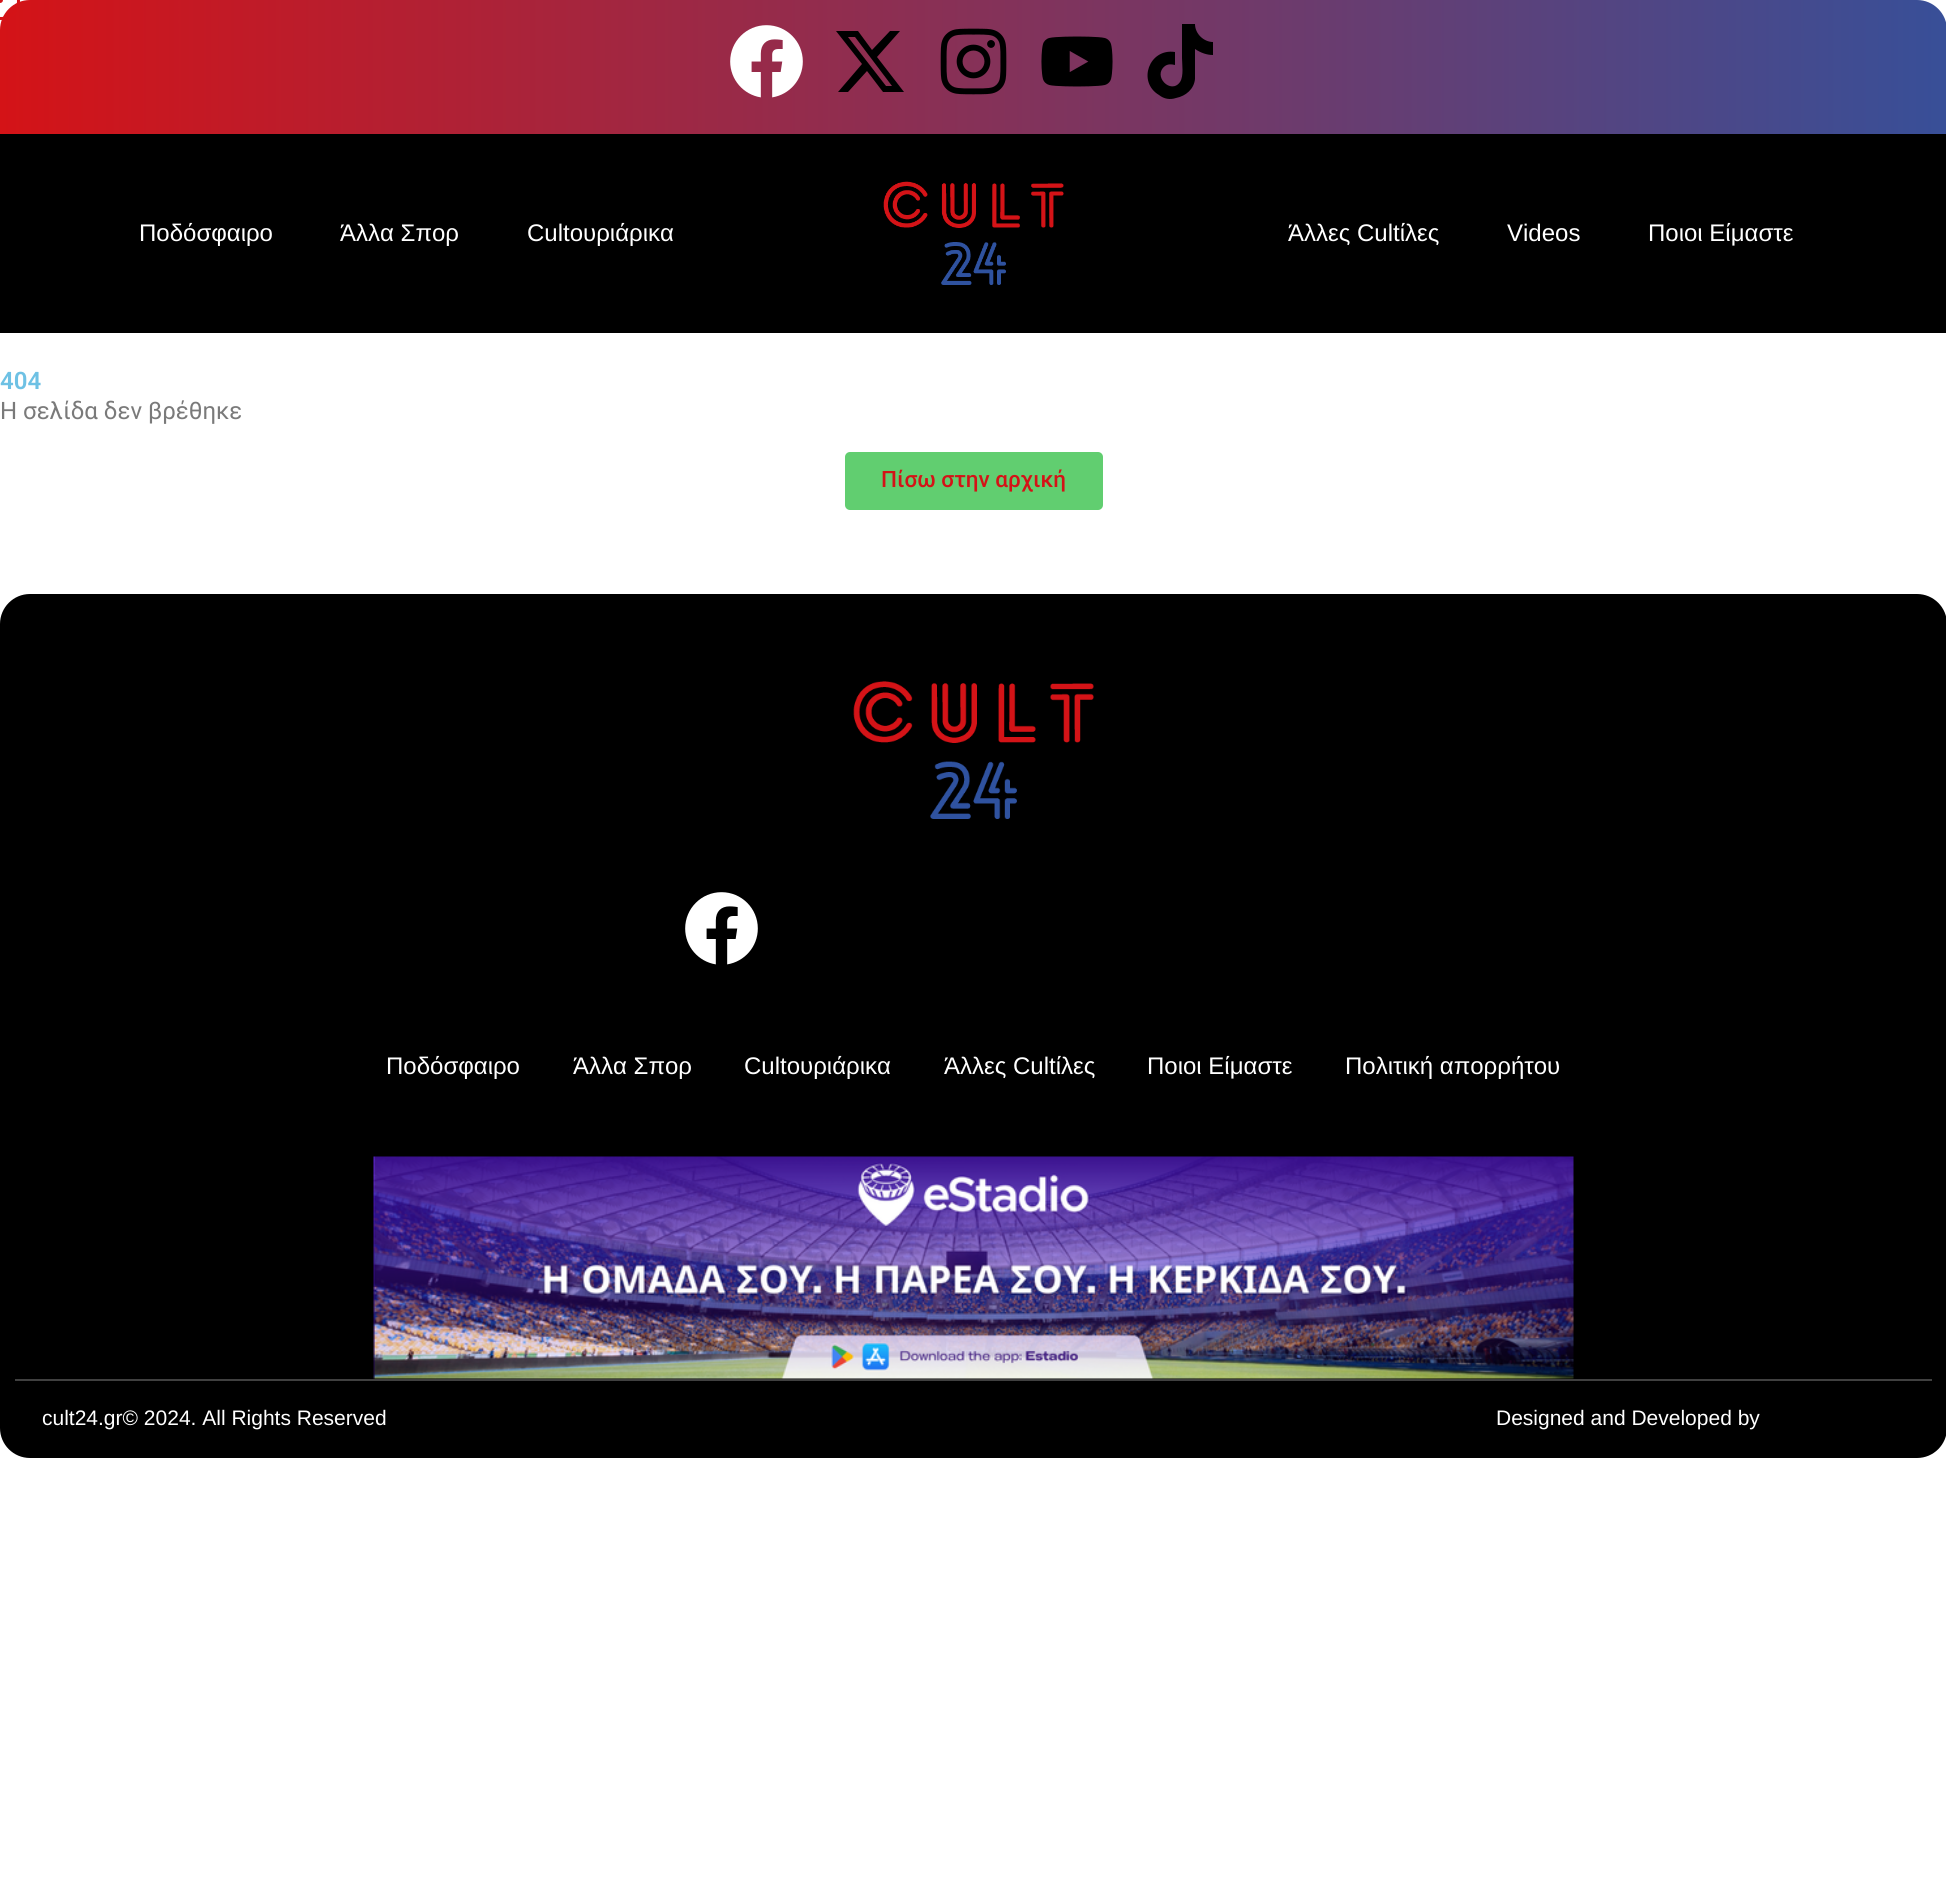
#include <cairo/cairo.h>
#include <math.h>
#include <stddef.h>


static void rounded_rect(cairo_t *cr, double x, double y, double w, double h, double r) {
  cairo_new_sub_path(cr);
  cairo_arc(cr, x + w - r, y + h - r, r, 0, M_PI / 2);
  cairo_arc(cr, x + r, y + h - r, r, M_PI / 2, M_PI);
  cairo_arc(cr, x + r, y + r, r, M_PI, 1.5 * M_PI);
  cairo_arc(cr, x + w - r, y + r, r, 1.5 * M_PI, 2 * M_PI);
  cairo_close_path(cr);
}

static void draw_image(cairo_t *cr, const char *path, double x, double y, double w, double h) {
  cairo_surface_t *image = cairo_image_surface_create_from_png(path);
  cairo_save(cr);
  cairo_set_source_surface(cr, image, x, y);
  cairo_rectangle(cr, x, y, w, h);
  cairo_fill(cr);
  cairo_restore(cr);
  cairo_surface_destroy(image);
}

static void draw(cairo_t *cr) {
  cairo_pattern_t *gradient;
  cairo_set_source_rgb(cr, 1, 1, 1);
  cairo_paint(cr);
  gradient = cairo_pattern_create_linear(0, 67, 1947, 67);
  cairo_pattern_add_color_stop_rgba(gradient, 0, 212 / 255.0, 19 / 255.0, 23 / 255.0, 1);
  cairo_pattern_add_color_stop_rgba(gradient, 1, 56 / 255.0, 79 / 255.0, 152 / 255.0, 1);
  cairo_set_source(cr, gradient);
  cairo_pattern_destroy(gradient);
  cairo_new_path(cr);
  cairo_move_to(cr, 30, 0);
  cairo_line_to(cr, 1917, 0);
  cairo_curve_to(cr, 1933.5, 0, 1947, 13.5, 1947, 30);
  cairo_line_to(cr, 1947, 134);
  cairo_line_to(cr, 0, 134);
  cairo_line_to(cr, 0, 30);
  cairo_curve_to(cr, 0, 13.5, 13.5, 0, 30, 0);
  cairo_close_path(cr);
  cairo_fill(cr);
  cairo_arc(cr, 1, 1, 17.5, 0, 2 * M_PI);
  cairo_set_source_rgb(cr, 212 / 255.0, 19 / 255.0, 23 / 255.0);
  cairo_set_line_width(cr, 3);
  cairo_stroke(cr);
  cairo_arc(cr, 0, 0, 3, 0, 2 * M_PI);
  cairo_fill(cr);
  draw_image(cr, "images/1.png", 730, 25, 73, 73);
  cairo_set_source_rgb(cr, 0, 0, 0);
  cairo_new_path(cr);
  cairo_move_to(cr, 890, 31);
  cairo_line_to(cr, 900, 31);
  cairo_line_to(cr, 877, 57);
  cairo_line_to(cr, 904, 92);
  cairo_line_to(cr, 883, 92);
  cairo_line_to(cr, 867, 71);
  cairo_line_to(cr, 848, 92);
  cairo_line_to(cr, 838, 92);
  cairo_line_to(cr, 862, 64);
  cairo_line_to(cr, 836, 31);
  cairo_line_to(cr, 858, 31);
  cairo_line_to(cr, 872, 50);
  cairo_close_path(cr);
  cairo_move_to(cr, 886, 86);
  cairo_line_to(cr, 892, 86);
  cairo_line_to(cr, 855, 37);
  cairo_line_to(cr, 848, 37);
  cairo_close_path(cr);
  cairo_fill(cr);
  draw_image(cr, "images/2.png", 940, 28, 67, 67);
  draw_image(cr, "images/3.png", 1041, 36, 72, 51);
  cairo_new_path(cr);
  cairo_move_to(cr, 1213, 55);
  cairo_curve_to(cr, 1207, 55, 1201, 53, 1195, 49);
  cairo_line_to(cr, 1195, 79);
  cairo_curve_to(cr, 1194, 89, 1186, 96, 1176, 98);
  cairo_curve_to(cr, 1170, 100, 1164, 99, 1159, 95);
  cairo_curve_to(cr, 1137, 82, 1149, 48, 1175, 52);
  cairo_line_to(cr, 1175, 65);
  cairo_curve_to(cr, 1171, 64, 1168, 64, 1165, 66);
  cairo_curve_to(cr, 1152, 76, 1171, 95, 1180, 82);
  cairo_curve_to(cr, 1184, 76, 1182, 64, 1182, 58);
  cairo_line_to(cr, 1182, 24);
  cairo_line_to(cr, 1195, 24);
  cairo_curve_to(cr, 1195, 34, 1204, 42, 1213, 42);
  cairo_close_path(cr);
  cairo_fill(cr);
  cairo_rectangle(cr, 0, 134, 1946, 199);
  cairo_fill(cr);
  draw_image(cr, "images/4.png", 883, 181, 181, 104);
  cairo_set_source_rgb(cr, 97 / 255.0, 206 / 255.0, 112 / 255.0);
  rounded_rect(cr, 845, 452, 258, 58, 5);
  cairo_fill(cr);
  cairo_set_source_rgb(cr, 0, 0, 0);
  rounded_rect(cr, 0, 594, 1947, 864, 30);
  cairo_fill(cr);
  draw_image(cr, "images/5.png", 853, 681, 241, 138);
  draw_image(cr, "images/6.png", 685, 892, 73, 73);
  draw_image(cr, "images/7.png", 373, 1156, 1201, 223);
  cairo_set_source_rgb(cr, 64 / 255.0, 64 / 255.0, 64 / 255.0);
  cairo_rectangle(cr, 15, 1379, 1917, 2);
  cairo_fill(cr);
  cairo_select_font_face(cr, "Liberation Sans", CAIRO_FONT_SLANT_NORMAL, CAIRO_FONT_WEIGHT_NORMAL);
  cairo_set_font_size(cr, 24);
  cairo_set_source_rgb(cr, 1, 1, 1);
  cairo_move_to(cr, 139, 241);
  cairo_show_text(cr, "Ποδόσφαιρο");
  cairo_move_to(cr, 340, 241);
  cairo_show_text(cr, "Άλλα Σπορ");
  cairo_move_to(cr, 527, 241);
  cairo_show_text(cr, "Cultουριάρικα");
  cairo_move_to(cr, 1288, 241);
  cairo_show_text(cr, "Άλλες Cultίλες");
  cairo_move_to(cr, 1507, 241);
  cairo_show_text(cr, "Videos");
  cairo_move_to(cr, 1648, 241);
  cairo_show_text(cr, "Ποιοι Είμαστε");
  cairo_select_font_face(cr, "Roboto SemiBold", CAIRO_FONT_SLANT_NORMAL, CAIRO_FONT_WEIGHT_NORMAL);
  cairo_set_source_rgb(cr, 110 / 255.0, 193 / 255.0, 228 / 255.0);
  cairo_move_to(cr, 0, 389);
  cairo_show_text(cr, "404");
  cairo_select_font_face(cr, "Roboto", CAIRO_FONT_SLANT_NORMAL, CAIRO_FONT_WEIGHT_NORMAL);
  cairo_set_source_rgb(cr, 122 / 255.0, 122 / 255.0, 122 / 255.0);
  cairo_move_to(cr, 0, 419);
  cairo_show_text(cr, "Η σελίδα δεν βρέθηκε");
  cairo_select_font_face(cr, "Roboto Medium", CAIRO_FONT_SLANT_NORMAL, CAIRO_FONT_WEIGHT_NORMAL);
  cairo_set_font_size(cr, 22.5);
  cairo_set_source_rgb(cr, 212 / 255.0, 19 / 255.0, 23 / 255.0);
  cairo_move_to(cr, 881, 487);
  cairo_show_text(cr, "Πίσω στην αρχική");
  cairo_select_font_face(cr, "Liberation Sans", CAIRO_FONT_SLANT_NORMAL, CAIRO_FONT_WEIGHT_NORMAL);
  cairo_set_font_size(cr, 24);
  cairo_set_source_rgb(cr, 1, 1, 1);
  cairo_move_to(cr, 386, 1074);
  cairo_show_text(cr, "Ποδόσφαιρο");
  cairo_move_to(cr, 573, 1074);
  cairo_show_text(cr, "Άλλα Σπορ");
  cairo_move_to(cr, 744, 1074);
  cairo_show_text(cr, "Cultουριάρικα");
  cairo_move_to(cr, 944, 1074);
  cairo_show_text(cr, "Άλλες Cultίλες");
  cairo_move_to(cr, 1147, 1074);
  cairo_show_text(cr, "Ποιοι Είμαστε");
  cairo_move_to(cr, 1345, 1074);
  cairo_show_text(cr, "Πολιτική απορρήτου");
  cairo_set_font_size(cr, 21);
  cairo_move_to(cr, 42, 1425);
  cairo_show_text(cr, "cult24.gr© 2024. All Rights Reserved");
  cairo_move_to(cr, 1496, 1425);
  cairo_show_text(cr, "Designed and Developed by");
}

int main(void) {
  cairo_surface_t *surface = cairo_image_surface_create(CAIRO_FORMAT_RGB24, 1946, 1883);
  cairo_t *cr = cairo_create(surface);
  cairo_font_options_t *options = cairo_font_options_create();
  cairo_font_options_set_hint_metrics(options, CAIRO_HINT_METRICS_OFF);
  cairo_font_options_set_hint_style(options, CAIRO_HINT_STYLE_NONE);
  cairo_set_font_options(cr, options);
  cairo_set_miter_limit(cr, 4);
  draw(cr);
  cairo_surface_write_to_png(surface, "out.png");
  cairo_font_options_destroy(options);
  cairo_destroy(cr);
  cairo_surface_destroy(surface);
  return 0;
}
